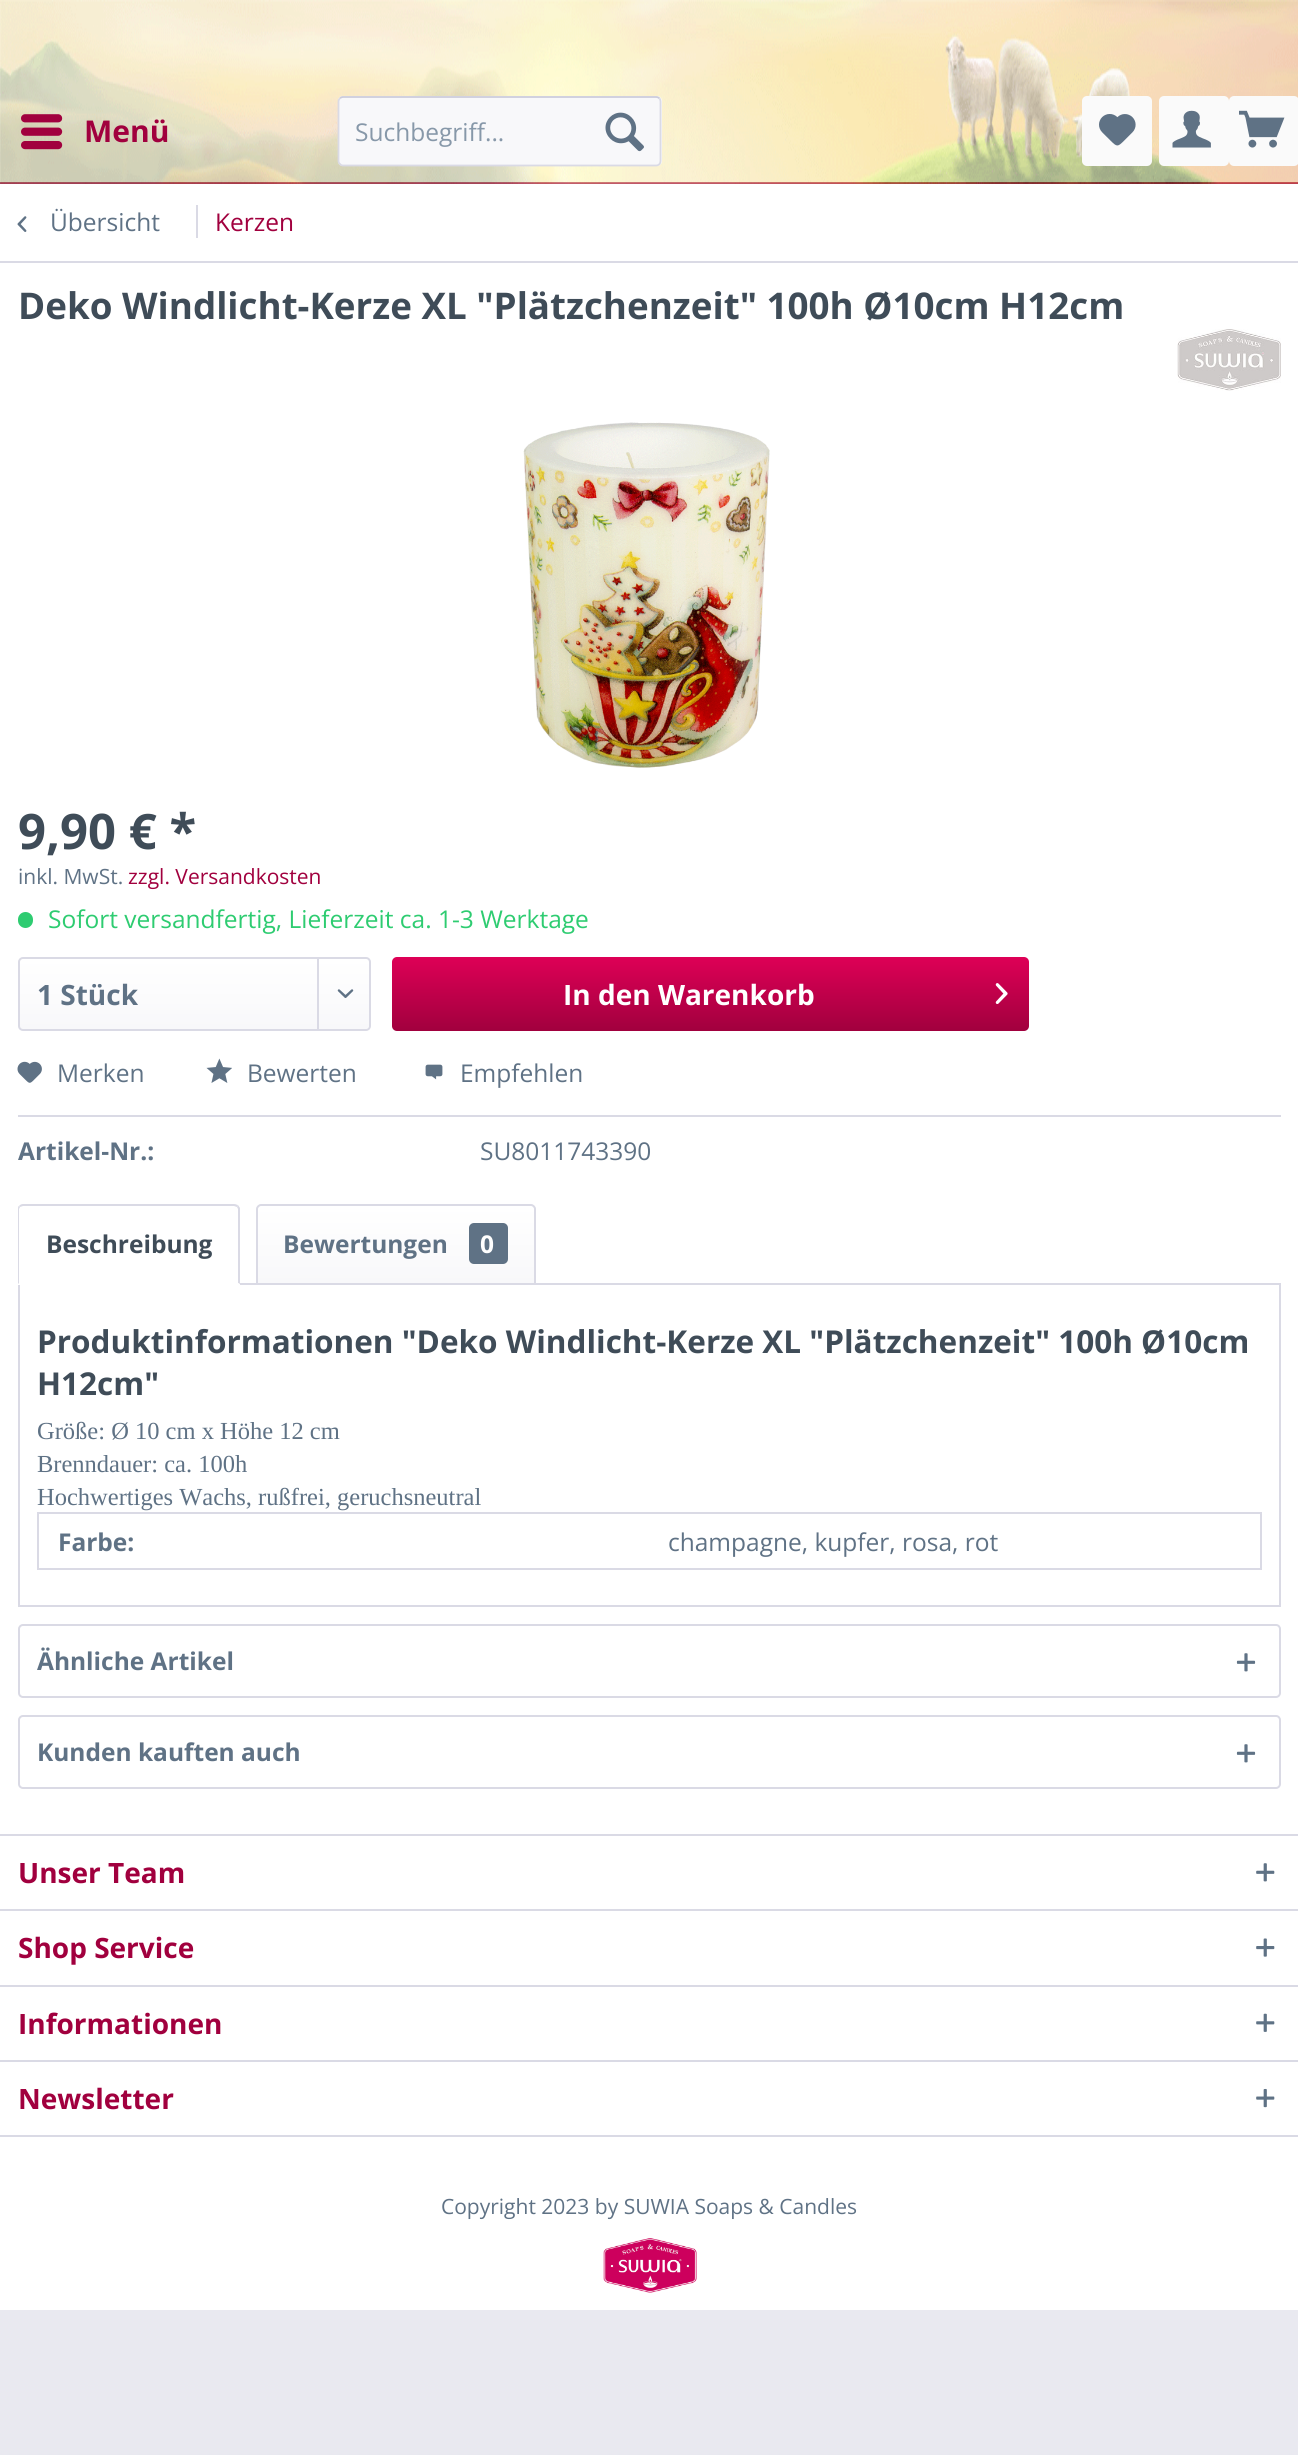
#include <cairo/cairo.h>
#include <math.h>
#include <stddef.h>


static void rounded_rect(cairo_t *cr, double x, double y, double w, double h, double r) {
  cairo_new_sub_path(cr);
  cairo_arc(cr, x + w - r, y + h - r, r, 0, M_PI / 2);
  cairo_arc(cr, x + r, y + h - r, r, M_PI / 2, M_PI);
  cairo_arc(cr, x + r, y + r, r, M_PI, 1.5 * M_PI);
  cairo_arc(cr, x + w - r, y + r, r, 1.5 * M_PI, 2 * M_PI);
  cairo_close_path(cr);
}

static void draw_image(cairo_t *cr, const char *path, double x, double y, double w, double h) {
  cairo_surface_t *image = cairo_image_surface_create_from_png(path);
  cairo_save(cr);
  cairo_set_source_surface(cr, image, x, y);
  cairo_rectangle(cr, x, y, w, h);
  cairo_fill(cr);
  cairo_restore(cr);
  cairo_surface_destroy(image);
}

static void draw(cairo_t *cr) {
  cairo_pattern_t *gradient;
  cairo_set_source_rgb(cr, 233 / 255.0, 233 / 255.0, 240 / 255.0);
  cairo_paint(cr);
  cairo_set_source_rgb(cr, 1, 1, 1);
  cairo_rectangle(cr, 0, 0, 1298, 182);
  cairo_fill(cr);
  cairo_set_source_rgb(cr, 161 / 255.0, 0, 62 / 255.0);
  cairo_rectangle(cr, 0, 182, 1298, 2);
  cairo_fill(cr);
  draw_image(cr, "images/1.png", 0, 0, 1298, 184);
  draw_image(cr, "images/2.png", 21, 114, 42, 36);
  cairo_set_source_rgb(cr, 248 / 255.0, 248 / 255.0, 250 / 255.0);
  rounded_rect(cr, 338, 96, 324, 70, 5);
  cairo_fill(cr);
  cairo_new_path(cr);
  cairo_move_to(cr, 340, 98.5);
  cairo_curve_to(cr, 340.5, 97.5, 342, 97, 343, 97);
  cairo_line_to(cr, 656, 97);
  cairo_curve_to(cr, 657.5, 97, 658.5, 97.5, 659.5, 98.5);
  cairo_set_source_rgb(cr, 203 / 255.0, 203 / 255.0, 219 / 255.0);
  cairo_set_line_width(cr, 1.8);
  cairo_stroke(cr);
  cairo_new_path(cr);
  cairo_move_to(cr, 659.5, 98.5);
  cairo_curve_to(cr, 660, 99, 660.5, 100.5, 660.5, 101.5);
  cairo_line_to(cr, 660.5, 161);
  cairo_curve_to(cr, 660.5, 162, 660, 163.5, 659.5, 164);
  cairo_curve_to(cr, 658.5, 165, 657.5, 165.5, 656, 165.5);
  cairo_line_to(cr, 343, 165.5);
  cairo_curve_to(cr, 342, 165.5, 340.5, 165, 340, 164);
  cairo_curve_to(cr, 339, 163.5, 338.5, 162, 338.5, 161);
  cairo_line_to(cr, 338.5, 101.5);
  cairo_curve_to(cr, 338.5, 100.5, 339, 99, 340, 98.5);
  cairo_set_source_rgb(cr, 218 / 255.0, 218 / 255.0, 229 / 255.0);
  cairo_stroke(cr);
  draw_image(cr, "images/3.png", 605, 112, 39, 40);
  cairo_set_source_rgb(cr, 250 / 255.0, 250 / 255.0, 250 / 255.0);
  rounded_rect(cr, 1082, 96, 70, 70, 5);
  cairo_fill(cr);
  draw_image(cr, "images/4.png", 1099, 114, 37, 32);
  rounded_rect(cr, 1159, 96, 70, 70, 5);
  cairo_fill(cr);
  draw_image(cr, "images/5.png", 1172, 110, 39, 38);
  rounded_rect(cr, 1229, 96, 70, 70, 5);
  cairo_fill(cr);
  draw_image(cr, "images/6.png", 1239, 110, 46, 38);
  cairo_set_source_rgb(cr, 1, 1, 1);
  cairo_rectangle(cr, 0, 184, 1298, 1650);
  cairo_fill(cr);
  cairo_set_source_rgb(cr, 218 / 255.0, 218 / 255.0, 229 / 255.0);
  cairo_rectangle(cr, 0, 261, 1298, 2);
  cairo_fill(cr);
  draw_image(cr, "images/7.png", 17, 216, 10, 16);
  cairo_rectangle(cr, 196, 205, 2, 33);
  cairo_fill(cr);
  draw_image(cr, "images/8.png", 1177, 329, 104, 62);
  draw_image(cr, "images/9.png", 523, 422, 247, 346);
  cairo_set_source_rgb(cr, 46 / 255.0, 204 / 255.0, 113 / 255.0);
  rounded_rect(cr, 18, 912, 15, 16, 7.5);
  cairo_fill(cr);
  gradient = cairo_pattern_create_linear(194, 959, 194, 1029);
  cairo_pattern_add_color_stop_rgba(gradient, 0, 1, 1, 1, 1);
  cairo_pattern_add_color_stop_rgba(gradient, 1, 248 / 255.0, 248 / 255.0, 250 / 255.0, 1);
  cairo_set_source(cr, gradient);
  cairo_pattern_destroy(gradient);
  rounded_rect(cr, 19, 959, 350, 70, 4);
  cairo_fill(cr);
  rounded_rect(cr, 19, 958, 351, 72, 4);
  cairo_set_source_rgb(cr, 218 / 255.0, 218 / 255.0, 229 / 255.0);
  cairo_set_line_width(cr, 2);
  cairo_stroke(cr);
  cairo_rectangle(cr, 317, 959, 2, 70);
  cairo_fill(cr);
  draw_image(cr, "images/10.png", 337, 989, 17, 9);
  gradient = cairo_pattern_create_linear(711, 957, 711, 1031);
  cairo_pattern_add_color_stop_rgba(gradient, 0, 222 / 255.0, 0, 86 / 255.0, 1);
  cairo_pattern_add_color_stop_rgba(gradient, 1, 161 / 255.0, 0, 62 / 255.0, 1);
  cairo_set_source(cr, gradient);
  cairo_pattern_destroy(gradient);
  rounded_rect(cr, 392, 957, 637, 74, 5);
  cairo_fill(cr);
  draw_image(cr, "images/11.png", 995, 983, 13, 21);
  cairo_set_source_rgb(cr, 218 / 255.0, 218 / 255.0, 229 / 255.0);
  cairo_rectangle(cr, 18, 1115, 1263, 2);
  cairo_fill(cr);
  draw_image(cr, "images/12.png", 17, 1061, 25, 22);
  draw_image(cr, "images/13.png", 206, 1058, 26, 25);
  draw_image(cr, "images/14.png", 425, 1064, 18, 16);
  cairo_rectangle(cr, 19, 1284, 1261, 322);
  cairo_stroke(cr);
  cairo_set_source_rgb(cr, 1, 1, 1);
  cairo_new_path(cr);
  cairo_move_to(cr, 23, 1204);
  cairo_line_to(cr, 235, 1204);
  cairo_curve_to(cr, 238, 1204, 240, 1206, 240, 1209);
  cairo_line_to(cr, 240, 1285);
  cairo_line_to(cr, 18, 1285);
  cairo_line_to(cr, 18, 1209);
  cairo_curve_to(cr, 18, 1206, 20, 1204, 23, 1204);
  cairo_close_path(cr);
  cairo_fill(cr);
  cairo_set_source_rgb(cr, 218 / 255.0, 218 / 255.0, 229 / 255.0);
  cairo_new_path(cr);
  cairo_move_to(cr, 23, 1204);
  cairo_curve_to(cr, 21, 1204, 20, 1205, 19, 1206);
  cairo_line_to(cr, 20, 1207);
  cairo_line_to(cr, 23, 1206);
  cairo_line_to(cr, 234, 1206);
  cairo_line_to(cr, 237, 1207);
  cairo_line_to(cr, 238, 1205);
  cairo_curve_to(cr, 237, 1205, 236, 1204, 234, 1204);
  cairo_close_path(cr);
  cairo_fill(cr);
  cairo_new_path(cr);
  cairo_move_to(cr, 240, 1284);
  cairo_line_to(cr, 238, 1283);
  cairo_line_to(cr, 238, 1209);
  cairo_line_to(cr, 237, 1207);
  cairo_line_to(cr, 238, 1205);
  cairo_line_to(cr, 240, 1208);
  cairo_close_path(cr);
  cairo_fill(cr);
  cairo_set_source_rgb(cr, 1, 1, 1);
  cairo_new_path(cr);
  cairo_move_to(cr, 239, 1284);
  cairo_line_to(cr, 18, 1284);
  cairo_line_to(cr, 19, 1283);
  cairo_line_to(cr, 238, 1283);
  cairo_close_path(cr);
  cairo_fill(cr);
  cairo_set_source_rgb(cr, 218 / 255.0, 218 / 255.0, 229 / 255.0);
  cairo_new_path(cr);
  cairo_move_to(cr, 19, 1206);
  cairo_curve_to(cr, 18, 1206, 18, 1208, 18, 1209);
  cairo_line_to(cr, 18, 1284);
  cairo_line_to(cr, 19, 1283);
  cairo_line_to(cr, 19, 1209);
  cairo_line_to(cr, 20, 1207);
  cairo_close_path(cr);
  cairo_fill(cr);
  gradient = cairo_pattern_create_linear(396, 1206, 396, 1283);
  cairo_pattern_add_color_stop_rgba(gradient, 0, 1, 1, 1, 1);
  cairo_pattern_add_color_stop_rgba(gradient, 1, 248 / 255.0, 248 / 255.0, 250 / 255.0, 1);
  cairo_set_source(cr, gradient);
  cairo_pattern_destroy(gradient);
  cairo_new_path(cr);
  cairo_move_to(cr, 261, 1206);
  cairo_line_to(cr, 530, 1206);
  cairo_curve_to(cr, 532, 1206, 534, 1208, 534, 1210);
  cairo_line_to(cr, 534, 1283);
  cairo_line_to(cr, 257, 1283);
  cairo_line_to(cr, 257, 1210);
  cairo_curve_to(cr, 257, 1208, 259, 1206, 261, 1206);
  cairo_close_path(cr);
  cairo_fill(cr);
  cairo_new_path(cr);
  cairo_move_to(cr, 261, 1205);
  cairo_line_to(cr, 531, 1205);
  cairo_curve_to(cr, 533, 1205, 535, 1207, 535, 1209);
  cairo_line_to(cr, 535, 1284);
  cairo_line_to(cr, 257, 1284);
  cairo_line_to(cr, 257, 1209);
  cairo_curve_to(cr, 257, 1207, 259, 1205, 261, 1205);
  cairo_close_path(cr);
  cairo_set_source_rgb(cr, 218 / 255.0, 218 / 255.0, 229 / 255.0);
  cairo_stroke(cr);
  cairo_set_source_rgb(cr, 95 / 255.0, 114 / 255.0, 133 / 255.0);
  rounded_rect(cr, 469, 1223, 39, 41, 5);
  cairo_fill(cr);
  cairo_rectangle(cr, 38, 1513, 1223, 56);
  cairo_set_source_rgb(cr, 218 / 255.0, 218 / 255.0, 229 / 255.0);
  cairo_stroke(cr);
  rounded_rect(cr, 19, 1625, 1261, 72, 4);
  cairo_stroke(cr);
  draw_image(cr, "images/15.png", 1236, 1653, 20, 19);
  rounded_rect(cr, 19, 1716, 1261, 72, 4);
  cairo_stroke(cr);
  draw_image(cr, "images/15.png", 1236, 1744, 20, 19);
  cairo_set_source_rgb(cr, 1, 1, 1);
  cairo_rectangle(cr, 0, 1836, 1298, 474);
  cairo_fill(cr);
  cairo_set_source_rgb(cr, 218 / 255.0, 218 / 255.0, 229 / 255.0);
  cairo_rectangle(cr, 0, 1834, 1298, 2);
  cairo_fill(cr);
  draw_image(cr, "images/16.png", 1256, 1863, 19, 19);
  cairo_rectangle(cr, 0, 1909, 1298, 2);
  cairo_fill(cr);
  draw_image(cr, "images/17.png", 1256, 1938, 19, 19);
  cairo_rectangle(cr, 0, 1985, 1298, 2);
  cairo_fill(cr);
  draw_image(cr, "images/18.png", 1256, 2013, 19, 19);
  cairo_rectangle(cr, 0, 2060, 1298, 2);
  cairo_fill(cr);
  cairo_rectangle(cr, 0, 2135, 1298, 2);
  cairo_fill(cr);
  draw_image(cr, "images/19.png", 1256, 2088, 19, 20);
  draw_image(cr, "images/20.png", 603, 2238, 94, 55);
  cairo_select_font_face(cr, "Open Sans", CAIRO_FONT_SLANT_NORMAL, CAIRO_FONT_WEIGHT_BOLD);
  cairo_set_font_size(cr, 30);
  cairo_set_source_rgb(cr, 161 / 255.0, 0, 62 / 255.0);
  cairo_move_to(cr, 84, 142);
  cairo_show_text(cr, "Menü");
  cairo_select_font_face(cr, "Open Sans", CAIRO_FONT_SLANT_NORMAL, CAIRO_FONT_WEIGHT_NORMAL);
  cairo_set_font_size(cr, 24.5);
  cairo_set_source_rgb(cr, 135 / 255.0, 152 / 255.0, 169 / 255.0);
  cairo_move_to(cr, 355, 141);
  cairo_show_text(cr, "Suchbegriff...");
  cairo_set_source_rgb(cr, 95 / 255.0, 114 / 255.0, 133 / 255.0);
  cairo_move_to(cr, 50, 231);
  cairo_show_text(cr, "Übersicht");
  cairo_set_source_rgb(cr, 161 / 255.0, 0, 62 / 255.0);
  cairo_move_to(cr, 215, 231);
  cairo_show_text(cr, "Kerzen");
  cairo_select_font_face(cr, "Open Sans", CAIRO_FONT_SLANT_NORMAL, CAIRO_FONT_WEIGHT_BOLD);
  cairo_set_font_size(cr, 36.75);
  cairo_set_source_rgb(cr, 63 / 255.0, 76 / 255.0, 88 / 255.0);
  cairo_move_to(cr, 18, 319);
  cairo_show_text(cr, "Deko Windlicht-Kerze XL \"Plätzchenzeit\" 100h Ø10cm H12cm");
  cairo_set_font_size(cr, 49);
  cairo_move_to(cr, 18, 849);
  cairo_show_text(cr, "9,90 € *");
  cairo_select_font_face(cr, "Open Sans", CAIRO_FONT_SLANT_NORMAL, CAIRO_FONT_WEIGHT_NORMAL);
  cairo_set_font_size(cr, 21);
  cairo_set_source_rgb(cr, 95 / 255.0, 114 / 255.0, 133 / 255.0);
  cairo_move_to(cr, 18, 884);
  cairo_show_text(cr, "inkl. MwSt.");
  cairo_set_source_rgb(cr, 161 / 255.0, 0, 62 / 255.0);
  cairo_move_to(cr, 128, 884);
  cairo_show_text(cr, "zzgl. Versandkosten");
  cairo_set_font_size(cr, 24.5);
  cairo_set_source_rgb(cr, 46 / 255.0, 204 / 255.0, 113 / 255.0);
  cairo_move_to(cr, 48, 928);
  cairo_show_text(cr, "Sofort versandfertig, Lieferzeit ca. 1-3 Werktage");
  cairo_select_font_face(cr, "Open Sans", CAIRO_FONT_SLANT_NORMAL, CAIRO_FONT_WEIGHT_BOLD);
  cairo_set_font_size(cr, 28);
  cairo_set_source_rgb(cr, 95 / 255.0, 114 / 255.0, 133 / 255.0);
  cairo_move_to(cr, 37, 1005);
  cairo_show_text(cr, "1 Stück");
  cairo_set_source_rgb(cr, 1, 1, 1);
  cairo_move_to(cr, 563, 1005);
  cairo_show_text(cr, "In den Warenkorb");
  cairo_select_font_face(cr, "Open Sans", CAIRO_FONT_SLANT_NORMAL, CAIRO_FONT_WEIGHT_NORMAL);
  cairo_set_font_size(cr, 24.5);
  cairo_set_source_rgb(cr, 95 / 255.0, 114 / 255.0, 133 / 255.0);
  cairo_move_to(cr, 57, 1082);
  cairo_show_text(cr, "Merken");
  cairo_move_to(cr, 247, 1082);
  cairo_show_text(cr, "Bewerten");
  cairo_move_to(cr, 460, 1082);
  cairo_show_text(cr, "Empfehlen");
  cairo_select_font_face(cr, "Open Sans", CAIRO_FONT_SLANT_NORMAL, CAIRO_FONT_WEIGHT_BOLD);
  cairo_move_to(cr, 18, 1160);
  cairo_show_text(cr, "Artikel-Nr.:");
  cairo_select_font_face(cr, "Open Sans", CAIRO_FONT_SLANT_NORMAL, CAIRO_FONT_WEIGHT_NORMAL);
  cairo_move_to(cr, 480, 1160);
  cairo_show_text(cr, "SU8011743390");
  cairo_select_font_face(cr, "Open Sans", CAIRO_FONT_SLANT_NORMAL, CAIRO_FONT_WEIGHT_BOLD);
  cairo_set_source_rgb(cr, 63 / 255.0, 76 / 255.0, 88 / 255.0);
  cairo_move_to(cr, 46, 1253);
  cairo_show_text(cr, "Beschreibung");
  cairo_set_source_rgb(cr, 95 / 255.0, 114 / 255.0, 133 / 255.0);
  cairo_move_to(cr, 283, 1253);
  cairo_show_text(cr, "Bewertungen");
  cairo_set_source_rgb(cr, 1, 1, 1);
  cairo_move_to(cr, 480, 1253);
  cairo_show_text(cr, "0");
  cairo_set_font_size(cr, 31.5);
  cairo_set_source_rgb(cr, 63 / 255.0, 76 / 255.0, 88 / 255.0);
  cairo_move_to(cr, 37, 1353);
  cairo_show_text(cr, "Produktinformationen \"Deko Windlicht-Kerze XL \"Plätzchenzeit\" 100h Ø10cm");
  cairo_move_to(cr, 37, 1395);
  cairo_show_text(cr, "H12cm\"");
  cairo_select_font_face(cr, "Liberation Serif", CAIRO_FONT_SLANT_NORMAL, CAIRO_FONT_WEIGHT_NORMAL);
  cairo_set_font_size(cr, 24.5);
  cairo_set_source_rgb(cr, 95 / 255.0, 114 / 255.0, 133 / 255.0);
  cairo_move_to(cr, 37, 1439);
  cairo_show_text(cr, "Größe: Ø 10 cm x Höhe 12 cm");
  cairo_move_to(cr, 37, 1472);
  cairo_show_text(cr, "Brenndauer: ca. 100h");
  cairo_move_to(cr, 37, 1505);
  cairo_show_text(cr, "Hochwertiges Wachs, rußfrei, geruchsneutral");
  cairo_select_font_face(cr, "Open Sans", CAIRO_FONT_SLANT_NORMAL, CAIRO_FONT_WEIGHT_BOLD);
  cairo_move_to(cr, 58, 1551);
  cairo_show_text(cr, "Farbe:");
  cairo_select_font_face(cr, "Open Sans", CAIRO_FONT_SLANT_NORMAL, CAIRO_FONT_WEIGHT_NORMAL);
  cairo_move_to(cr, 668, 1551);
  cairo_show_text(cr, "champagne, kupfer, rosa, rot");
  cairo_select_font_face(cr, "Open Sans", CAIRO_FONT_SLANT_NORMAL, CAIRO_FONT_WEIGHT_BOLD);
  cairo_move_to(cr, 37, 1670);
  cairo_show_text(cr, "Ähnliche Artikel");
  cairo_move_to(cr, 37, 1761);
  cairo_show_text(cr, "Kunden kauften auch");
  cairo_set_font_size(cr, 28);
  cairo_set_source_rgb(cr, 161 / 255.0, 0, 62 / 255.0);
  cairo_move_to(cr, 18, 1883);
  cairo_show_text(cr, "Unser Team");
  cairo_move_to(cr, 18, 1958);
  cairo_show_text(cr, "Shop Service");
  cairo_move_to(cr, 18, 2034);
  cairo_show_text(cr, "Informationen");
  cairo_move_to(cr, 18, 2109);
  cairo_show_text(cr, "Newsletter");
  cairo_select_font_face(cr, "Open Sans", CAIRO_FONT_SLANT_NORMAL, CAIRO_FONT_WEIGHT_NORMAL);
  cairo_set_font_size(cr, 21);
  cairo_set_source_rgb(cr, 95 / 255.0, 114 / 255.0, 133 / 255.0);
  cairo_move_to(cr, 441, 2214);
  cairo_show_text(cr, "Copyright 2023 by SUWIA Soaps & Candles");
}

int main(void) {
  cairo_surface_t *surface = cairo_image_surface_create(CAIRO_FORMAT_RGB24, 1298, 2455);
  cairo_t *cr = cairo_create(surface);
  cairo_font_options_t *options = cairo_font_options_create();
  cairo_font_options_set_hint_metrics(options, CAIRO_HINT_METRICS_OFF);
  cairo_font_options_set_hint_style(options, CAIRO_HINT_STYLE_NONE);
  cairo_set_font_options(cr, options);
  cairo_set_miter_limit(cr, 4);
  draw(cr);
  cairo_surface_write_to_png(surface, "out.png");
  cairo_font_options_destroy(options);
  cairo_destroy(cr);
  cairo_surface_destroy(surface);
  return 0;
}
